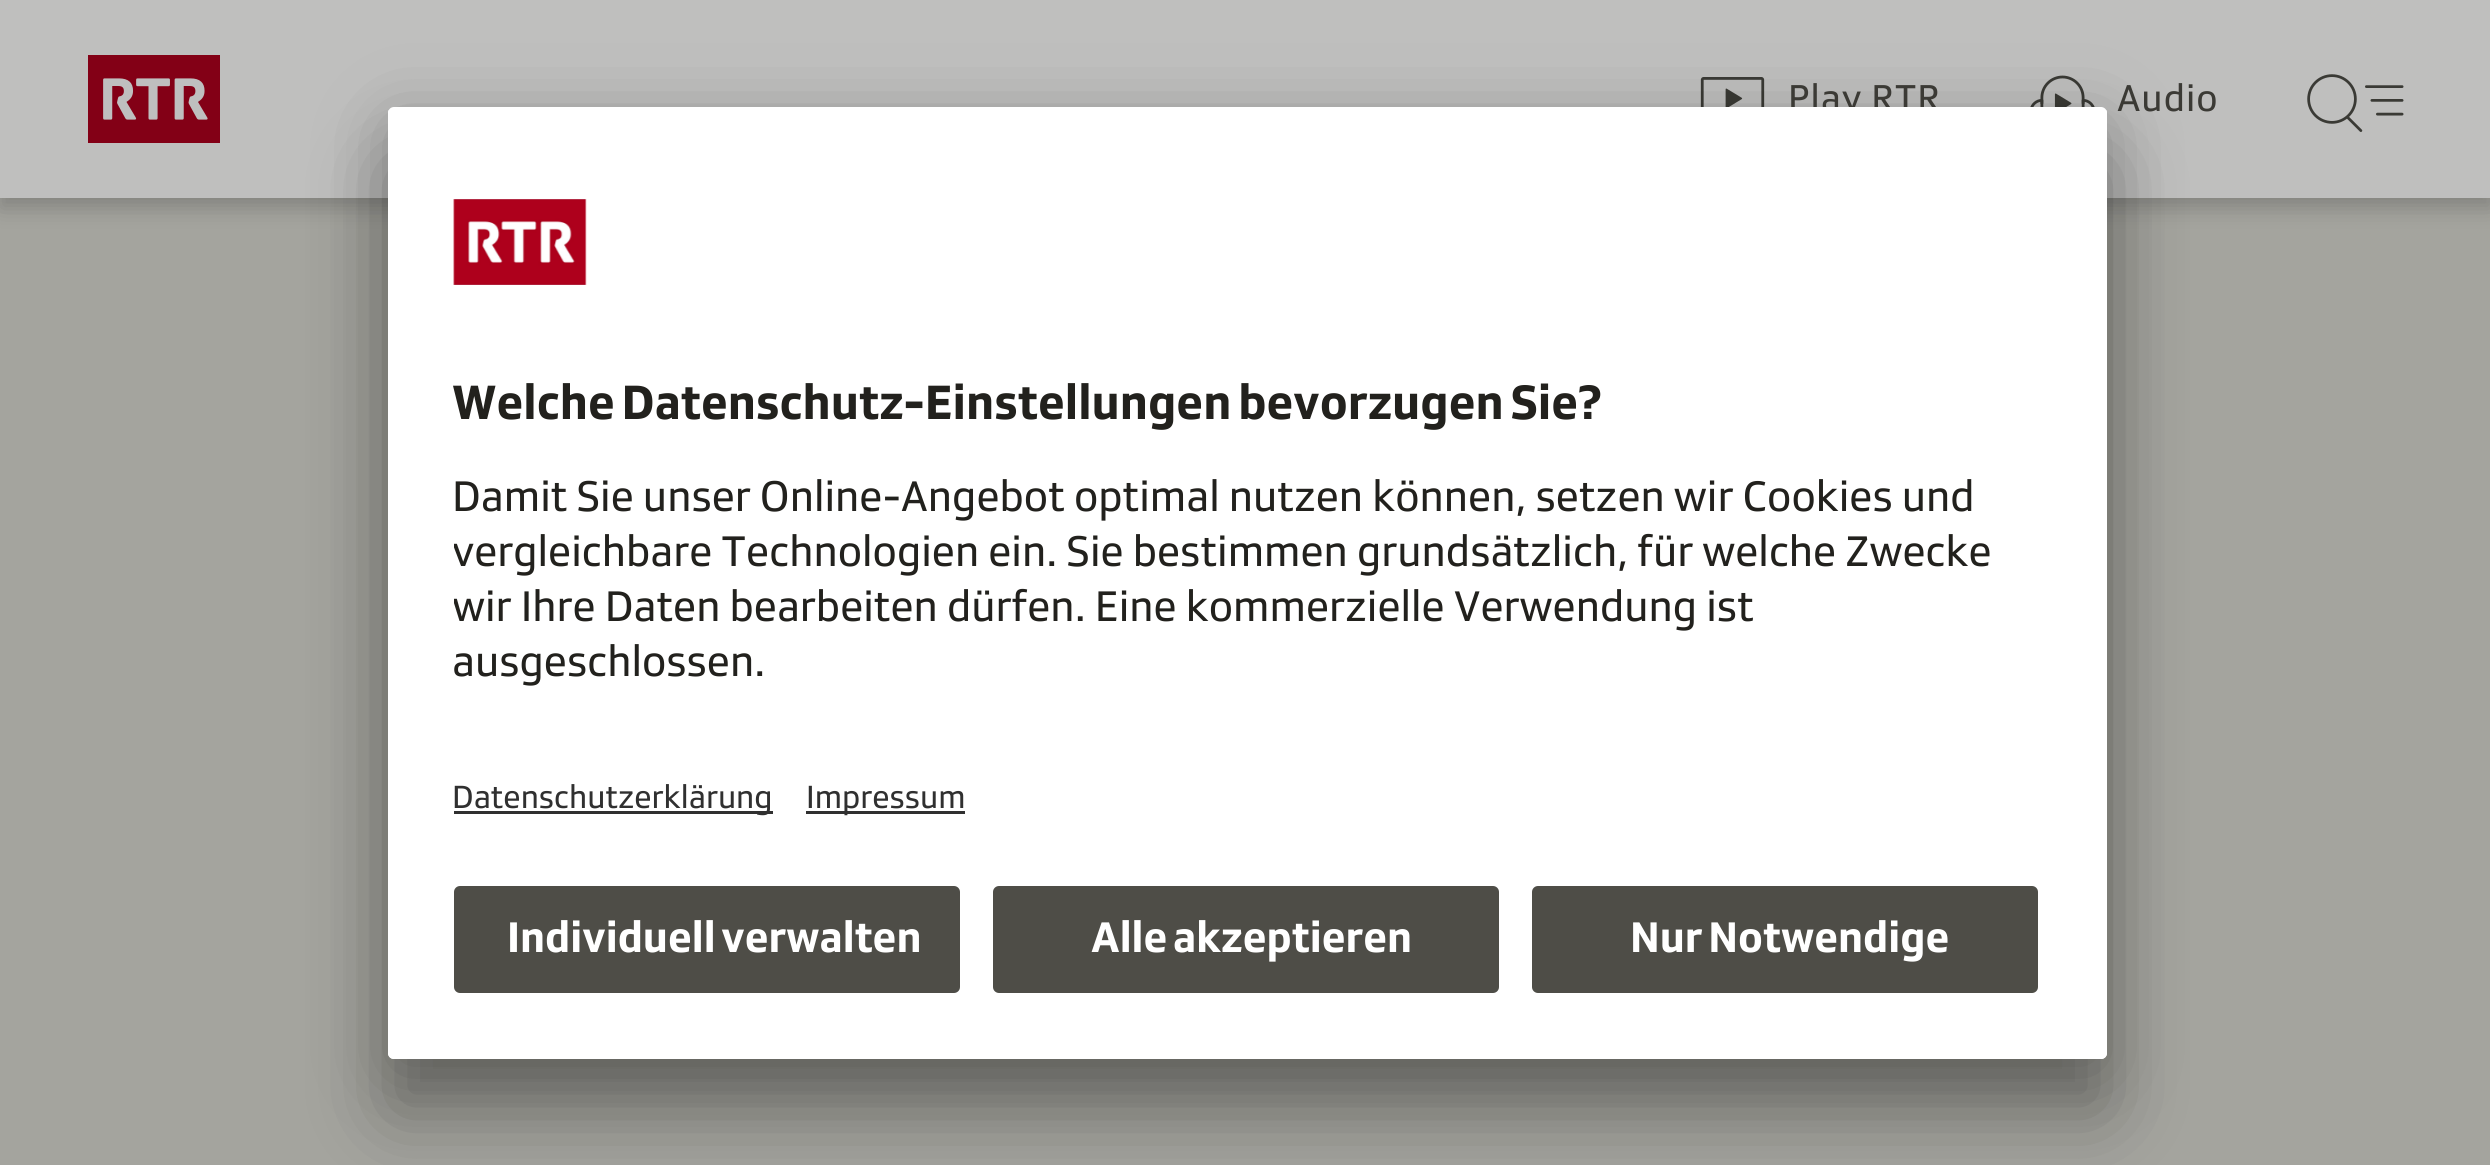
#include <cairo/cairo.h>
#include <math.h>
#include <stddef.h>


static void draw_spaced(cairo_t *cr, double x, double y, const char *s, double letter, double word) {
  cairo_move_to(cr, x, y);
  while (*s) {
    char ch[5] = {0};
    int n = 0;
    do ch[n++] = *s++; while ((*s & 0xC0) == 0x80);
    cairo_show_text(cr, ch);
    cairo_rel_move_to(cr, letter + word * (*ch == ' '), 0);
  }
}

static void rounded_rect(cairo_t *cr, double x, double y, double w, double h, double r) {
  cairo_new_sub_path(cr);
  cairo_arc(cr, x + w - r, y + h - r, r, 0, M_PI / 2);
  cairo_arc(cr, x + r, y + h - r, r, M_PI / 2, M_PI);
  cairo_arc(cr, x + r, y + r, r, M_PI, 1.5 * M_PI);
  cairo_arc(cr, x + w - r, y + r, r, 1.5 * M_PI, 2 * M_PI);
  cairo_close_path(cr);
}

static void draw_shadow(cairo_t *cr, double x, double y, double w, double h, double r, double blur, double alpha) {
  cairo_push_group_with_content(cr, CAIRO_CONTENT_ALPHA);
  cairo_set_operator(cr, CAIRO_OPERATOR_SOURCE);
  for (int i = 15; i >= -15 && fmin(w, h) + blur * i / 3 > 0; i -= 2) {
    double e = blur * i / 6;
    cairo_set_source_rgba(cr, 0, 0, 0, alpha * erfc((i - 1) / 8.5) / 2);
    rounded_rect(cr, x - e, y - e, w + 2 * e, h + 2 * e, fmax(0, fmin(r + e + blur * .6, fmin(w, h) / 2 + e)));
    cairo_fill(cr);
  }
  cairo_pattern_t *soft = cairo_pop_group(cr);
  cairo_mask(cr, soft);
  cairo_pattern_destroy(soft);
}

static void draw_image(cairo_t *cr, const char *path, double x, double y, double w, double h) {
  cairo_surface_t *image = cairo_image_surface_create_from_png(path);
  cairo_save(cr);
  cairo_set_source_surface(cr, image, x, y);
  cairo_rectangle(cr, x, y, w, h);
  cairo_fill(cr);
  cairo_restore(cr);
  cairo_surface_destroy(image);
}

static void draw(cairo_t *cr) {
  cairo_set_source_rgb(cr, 164 / 255.0, 164 / 255.0, 158 / 255.0);
  cairo_paint(cr);
  cairo_set_source_rgb(cr, 0, 0, 0);
  draw_shadow(cr, 0, 83, 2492, 115, 0, 11, 0.08);
  draw_shadow(cr, 0, 94, 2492, 115, 0, 11, 0.16);
  cairo_set_source_rgb(cr, 191 / 255.0, 191 / 255.0, 190 / 255.0);
  cairo_rectangle(cr, 0, 0, 2490, 198);
  cairo_fill(cr);
  draw_image(cr, "images/1.png", 88, 55, 132, 88);
  draw_image(cr, "images/2.png", 1700, 77, 65, 30);
  draw_image(cr, "images/3.png", 2030, 75, 65, 32);
  draw_image(cr, "images/4.png", 2307, 74, 97, 58);
  cairo_set_source_rgb(cr, 0, 0, 0);
  draw_shadow(cr, 388, 162, 1719, 952, 6, 38.5, 0.3);
  draw_shadow(cr, 388, 121, 1719, 952, 6, 36, 0.22);
  cairo_select_font_face(cr, "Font", CAIRO_FONT_SLANT_NORMAL, CAIRO_FONT_WEIGHT_NORMAL);
  cairo_set_font_size(cr, 38.5);
  cairo_set_source_rgb(cr, 59 / 255.0, 58 / 255.0, 53 / 255.0);
  draw_spaced(cr, 1788, 111, "Play RTR", 1, 0);
  draw_spaced(cr, 2117, 111, "Audio", 1, 0);
  cairo_set_source_rgb(cr, 1, 1, 1);
  rounded_rect(cr, 388, 107, 1719, 952, 6);
  cairo_fill(cr);
  cairo_save(cr);
  rounded_rect(cr, 388, 107, 1719, 952, 6);
  cairo_clip(cr);
  cairo_new_path(cr);
  cairo_move_to(cr, 394, 107);
  cairo_line_to(cr, 2101, 107);
  cairo_curve_to(cr, 2104.5, 107, 2107, 109.5, 2107, 113);
  cairo_line_to(cr, 2107, 864);
  cairo_line_to(cr, 388, 864);
  cairo_line_to(cr, 388, 113);
  cairo_curve_to(cr, 388, 109.5, 390.5, 107, 394, 107);
  cairo_close_path(cr);
  cairo_clip(cr);
  cairo_rectangle(cr, 388, 110, 1719, 754);
  cairo_fill(cr);
  cairo_restore(cr);
  draw_image(cr, "images/5.png", 453, 199, 134, 86);
  cairo_select_font_face(cr, "Font", CAIRO_FONT_SLANT_NORMAL, CAIRO_FONT_WEIGHT_BOLD);
  cairo_set_font_size(cr, 49.5);
  cairo_set_source_rgb(cr, 34 / 255.0, 33 / 255.0, 29 / 255.0);
  draw_spaced(cr, 452, 419, "Welche Datenschutz-Einstellungen bevorzugen Sie?", 0, -3);
  cairo_select_font_face(cr, "Font", CAIRO_FONT_SLANT_NORMAL, CAIRO_FONT_WEIGHT_NORMAL);
  cairo_set_font_size(cr, 44);
  cairo_move_to(cr, 452, 511);
  cairo_show_text(cr, "Damit Sie unser Online-Angebot optimal nutzen können, setzen wir Cookies und");
  cairo_save(cr);
  cairo_rectangle(cr, 454, 459, 1587, 242);
  cairo_clip(cr);
  cairo_move_to(cr, 452, 566);
  cairo_show_text(cr, "vergleichbare Technologien ein. Sie bestimmen grundsätzlich, für welche Zwecke");
  cairo_move_to(cr, 452, 621);
  cairo_show_text(cr, "wir Ihre Daten bearbeiten dürfen. Eine kommerzielle Verwendung ist");
  cairo_restore(cr);
  cairo_move_to(cr, 452, 676);
  cairo_show_text(cr, "ausgeschlossen.");
  cairo_set_source_rgb(cr, 48 / 255.0, 48 / 255.0, 48 / 255.0);
  cairo_rectangle(cr, 454, 811, 319, 3);
  cairo_fill(cr);
  cairo_set_font_size(cr, 33);
  cairo_move_to(cr, 452, 808);
  cairo_show_text(cr, "Datenschutzerklärung");
  cairo_rectangle(cr, 806, 811, 159, 3);
  cairo_fill(cr);
  cairo_move_to(cr, 806, 808);
  cairo_show_text(cr, "Impressum");
  cairo_set_source_rgb(cr, 1, 1, 1);
  cairo_new_path(cr);
  cairo_move_to(cr, 388, 864);
  cairo_line_to(cr, 2107, 864);
  cairo_line_to(cr, 2107, 1053);
  cairo_curve_to(cr, 2107, 1056.5, 2104.5, 1059, 2101, 1059);
  cairo_line_to(cr, 394, 1059);
  cairo_curve_to(cr, 390.5, 1059, 388, 1056.5, 388, 1053);
  cairo_close_path(cr);
  cairo_fill(cr);
  cairo_set_source_rgb(cr, 78 / 255.0, 77 / 255.0, 71 / 255.0);
  rounded_rect(cr, 454, 886, 506, 107, 6);
  cairo_fill(cr);
  cairo_select_font_face(cr, "Font", CAIRO_FONT_SLANT_NORMAL, CAIRO_FONT_WEIGHT_BOLD);
  cairo_set_font_size(cr, 44);
  cairo_set_source_rgb(cr, 1, 1, 1);
  draw_spaced(cr, 507, 952, "Individuell verwalten", 0, -3);
  cairo_set_source_rgb(cr, 78 / 255.0, 77 / 255.0, 71 / 255.0);
  rounded_rect(cr, 993, 886, 506, 107, 6);
  cairo_fill(cr);
  cairo_set_source_rgb(cr, 1, 1, 1);
  draw_spaced(cr, 1091, 952, "Alle akzeptieren", 0, -3);
  cairo_set_source_rgb(cr, 78 / 255.0, 77 / 255.0, 71 / 255.0);
  rounded_rect(cr, 1532, 886, 506, 107, 6);
  cairo_fill(cr);
  cairo_set_source_rgb(cr, 1, 1, 1);
  draw_spaced(cr, 1630, 952, "Nur Notwendige", 0, -3);
}

int main(void) {
  cairo_surface_t *surface = cairo_image_surface_create(CAIRO_FORMAT_RGB24, 2490, 1165);
  cairo_t *cr = cairo_create(surface);
  cairo_font_options_t *options = cairo_font_options_create();
  cairo_font_options_set_hint_metrics(options, CAIRO_HINT_METRICS_OFF);
  cairo_font_options_set_hint_style(options, CAIRO_HINT_STYLE_NONE);
  cairo_set_font_options(cr, options);
  cairo_set_miter_limit(cr, 4);
  draw(cr);
  cairo_surface_write_to_png(surface, "out.png");
  cairo_font_options_destroy(options);
  cairo_destroy(cr);
  cairo_surface_destroy(surface);
  return 0;
}
